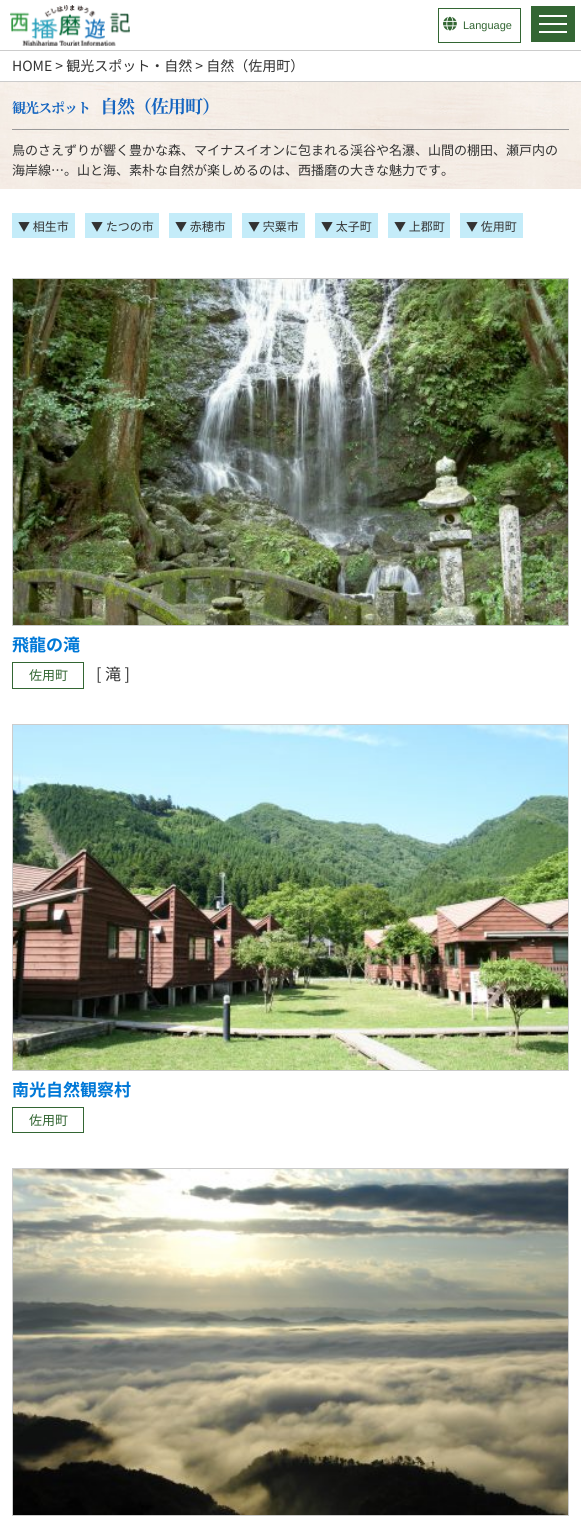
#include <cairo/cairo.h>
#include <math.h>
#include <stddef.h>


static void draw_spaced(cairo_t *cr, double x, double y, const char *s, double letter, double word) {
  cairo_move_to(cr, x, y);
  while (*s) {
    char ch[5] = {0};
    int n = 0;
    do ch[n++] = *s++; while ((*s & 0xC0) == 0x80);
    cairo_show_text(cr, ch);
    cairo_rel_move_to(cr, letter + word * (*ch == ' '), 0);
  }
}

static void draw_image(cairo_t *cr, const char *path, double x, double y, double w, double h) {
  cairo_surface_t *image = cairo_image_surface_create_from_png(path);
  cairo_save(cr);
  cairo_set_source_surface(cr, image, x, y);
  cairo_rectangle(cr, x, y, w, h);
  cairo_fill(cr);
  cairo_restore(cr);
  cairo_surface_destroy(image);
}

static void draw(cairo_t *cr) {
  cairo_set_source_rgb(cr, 1, 1, 1);
  cairo_paint(cr);
  cairo_set_source_rgb(cr, 204 / 255.0, 204 / 255.0, 204 / 255.0);
  cairo_rectangle(cr, 0, 50, 581, 1);
  cairo_fill(cr);
  draw_image(cr, "images/1.png", 10, 5, 120, 41);
  cairo_set_source_rgb(cr, 51 / 255.0, 102 / 255.0, 51 / 255.0);
  cairo_rectangle(cr, 531, 6, 44, 36);
  cairo_fill(cr);
  cairo_set_source_rgb(cr, 1, 1, 1);
  cairo_rectangle(cr, 539, 23, 28, 2);
  cairo_fill(cr);
  cairo_rectangle(cr, 539, 15, 28, 2);
  cairo_fill(cr);
  cairo_rectangle(cr, 539, 31, 28, 2);
  cairo_fill(cr);
  cairo_rectangle(cr, 438.5, 8.5, 82, 34);
  cairo_set_source_rgb(cr, 51 / 255.0, 102 / 255.0, 51 / 255.0);
  cairo_set_line_width(cr, 1);
  cairo_stroke(cr);
  draw_image(cr, "images/2.png", 443, 16, 14, 15);
  cairo_set_source_rgb(cr, 204 / 255.0, 204 / 255.0, 204 / 255.0);
  cairo_rectangle(cr, 0, 81, 581, 1);
  cairo_fill(cr);
  draw_image(cr, "images/3.png", 0, 82, 581, 107);
  cairo_set_source_rgb(cr, 153 / 255.0, 153 / 255.0, 153 / 255.0);
  cairo_rectangle(cr, 12, 129, 557, 1);
  cairo_fill(cr);
  cairo_set_source_rgb(cr, 196 / 255.0, 236 / 255.0, 249 / 255.0);
  cairo_rectangle(cr, 12, 213, 63, 25);
  cairo_fill(cr);
  cairo_rectangle(cr, 85, 213, 74, 25);
  cairo_fill(cr);
  cairo_rectangle(cr, 169, 213, 63, 25);
  cairo_fill(cr);
  cairo_rectangle(cr, 242, 213, 63, 25);
  cairo_fill(cr);
  cairo_rectangle(cr, 315, 213, 63, 25);
  cairo_fill(cr);
  cairo_rectangle(cr, 388, 213, 62, 25);
  cairo_fill(cr);
  cairo_rectangle(cr, 460, 213, 63, 25);
  cairo_fill(cr);
  cairo_rectangle(cr, 12.5, 278.5, 556, 347);
  cairo_set_source_rgb(cr, 204 / 255.0, 204 / 255.0, 204 / 255.0);
  cairo_stroke(cr);
  draw_image(cr, "images/4.png", 13, 279, 555, 346);
  cairo_rectangle(cr, 12.5, 662.5, 71, 26);
  cairo_set_source_rgb(cr, 51 / 255.0, 102 / 255.0, 51 / 255.0);
  cairo_stroke(cr);
  cairo_rectangle(cr, 12.5, 724.5, 556, 346);
  cairo_set_source_rgb(cr, 204 / 255.0, 204 / 255.0, 204 / 255.0);
  cairo_stroke(cr);
  draw_image(cr, "images/5.png", 13, 725, 555, 345);
  cairo_rectangle(cr, 12.5, 1107.5, 71, 25);
  cairo_set_source_rgb(cr, 51 / 255.0, 102 / 255.0, 51 / 255.0);
  cairo_stroke(cr);
  cairo_rectangle(cr, 12.5, 1168.5, 556, 347);
  cairo_set_source_rgb(cr, 204 / 255.0, 204 / 255.0, 204 / 255.0);
  cairo_stroke(cr);
  draw_image(cr, "images/6.png", 13, 1169, 555, 346);
  cairo_select_font_face(cr, "Liberation Sans", CAIRO_FONT_SLANT_NORMAL, CAIRO_FONT_WEIGHT_NORMAL);
  cairo_set_font_size(cr, 11);
  cairo_set_source_rgb(cr, 51 / 255.0, 102 / 255.0, 51 / 255.0);
  cairo_move_to(cr, 463, 29);
  cairo_show_text(cr, "Language");
  cairo_select_font_face(cr, "Noto Sans JP", CAIRO_FONT_SLANT_NORMAL, CAIRO_FONT_WEIGHT_NORMAL);
  cairo_set_font_size(cr, 14);
  cairo_set_source_rgb(cr, 51 / 255.0, 51 / 255.0, 51 / 255.0);
  cairo_move_to(cr, 12, 71);
  cairo_show_text(cr, "HOME > 観光スポット・自然 > 自然（佐用町）");
  cairo_select_font_face(cr, "Noto Serif JP", CAIRO_FONT_SLANT_NORMAL, CAIRO_FONT_WEIGHT_BOLD);
  cairo_set_source_rgb(cr, 21 / 255.0, 101 / 255.0, 192 / 255.0);
  draw_spaced(cr, 12, 113, "観光スポット", -1, 0);
  cairo_set_font_size(cr, 18);
  draw_spaced(cr, 100, 113, "自然（佐用町）", -1, 0);
  cairo_select_font_face(cr, "Noto Sans JP", CAIRO_FONT_SLANT_NORMAL, CAIRO_FONT_WEIGHT_NORMAL);
  cairo_set_font_size(cr, 13);
  cairo_set_source_rgb(cr, 51 / 255.0, 51 / 255.0, 51 / 255.0);
  cairo_move_to(cr, 12, 155);
  cairo_show_text(cr, "鳥のさえずりが響く豊かな森、マイナスイオンに包まれる渓谷や名瀑、山間の棚田、瀬戸内の");
  cairo_move_to(cr, 12, 175);
  cairo_show_text(cr, "海岸線…。山と海、素朴な自然が楽しめるのは、西播磨の大きな魅力です。");
  cairo_set_font_size(cr, 12);
  cairo_move_to(cr, 18, 231);
  cairo_show_text(cr, "▼ 相生市");
  cairo_move_to(cr, 91, 231);
  cairo_show_text(cr, "▼ たつの市");
  cairo_move_to(cr, 175, 231);
  cairo_show_text(cr, "▼ 赤穂市");
  cairo_move_to(cr, 248, 231);
  cairo_show_text(cr, "▼ 宍粟市");
  cairo_move_to(cr, 321, 231);
  cairo_show_text(cr, "▼ 太子町");
  cairo_move_to(cr, 394, 231);
  cairo_show_text(cr, "▼ 上郡町");
  cairo_move_to(cr, 466, 231);
  cairo_show_text(cr, "▼ 佐用町");
  cairo_select_font_face(cr, "Noto Sans JP", CAIRO_FONT_SLANT_NORMAL, CAIRO_FONT_WEIGHT_BOLD);
  cairo_set_font_size(cr, 17);
  cairo_set_source_rgb(cr, 0, 120 / 255.0, 215 / 255.0);
  cairo_move_to(cr, 12, 651);
  cairo_show_text(cr, "飛龍の滝");
  cairo_select_font_face(cr, "Noto Sans JP", CAIRO_FONT_SLANT_NORMAL, CAIRO_FONT_WEIGHT_NORMAL);
  cairo_set_font_size(cr, 13);
  cairo_set_source_rgb(cr, 51 / 255.0, 102 / 255.0, 51 / 255.0);
  cairo_move_to(cr, 29, 680);
  cairo_show_text(cr, "佐用町");
  cairo_set_font_size(cr, 16);
  cairo_set_source_rgb(cr, 51 / 255.0, 51 / 255.0, 51 / 255.0);
  cairo_move_to(cr, 96, 680);
  cairo_show_text(cr, "[ 滝 ]");
  cairo_select_font_face(cr, "Noto Sans JP", CAIRO_FONT_SLANT_NORMAL, CAIRO_FONT_WEIGHT_BOLD);
  cairo_set_font_size(cr, 17);
  cairo_set_source_rgb(cr, 0, 120 / 255.0, 215 / 255.0);
  cairo_move_to(cr, 12, 1096);
  cairo_show_text(cr, "南光自然観察村");
  cairo_select_font_face(cr, "Noto Sans JP", CAIRO_FONT_SLANT_NORMAL, CAIRO_FONT_WEIGHT_NORMAL);
  cairo_set_font_size(cr, 13);
  cairo_set_source_rgb(cr, 51 / 255.0, 102 / 255.0, 51 / 255.0);
  cairo_move_to(cr, 29, 1125);
  cairo_show_text(cr, "佐用町");
}

int main(void) {
  cairo_surface_t *surface = cairo_image_surface_create(CAIRO_FORMAT_RGB24, 581, 1529);
  cairo_t *cr = cairo_create(surface);
  cairo_font_options_t *options = cairo_font_options_create();
  cairo_font_options_set_hint_metrics(options, CAIRO_HINT_METRICS_OFF);
  cairo_font_options_set_hint_style(options, CAIRO_HINT_STYLE_NONE);
  cairo_set_font_options(cr, options);
  cairo_set_miter_limit(cr, 4);
  draw(cr);
  cairo_surface_write_to_png(surface, "out.png");
  cairo_font_options_destroy(options);
  cairo_destroy(cr);
  cairo_surface_destroy(surface);
  return 0;
}
